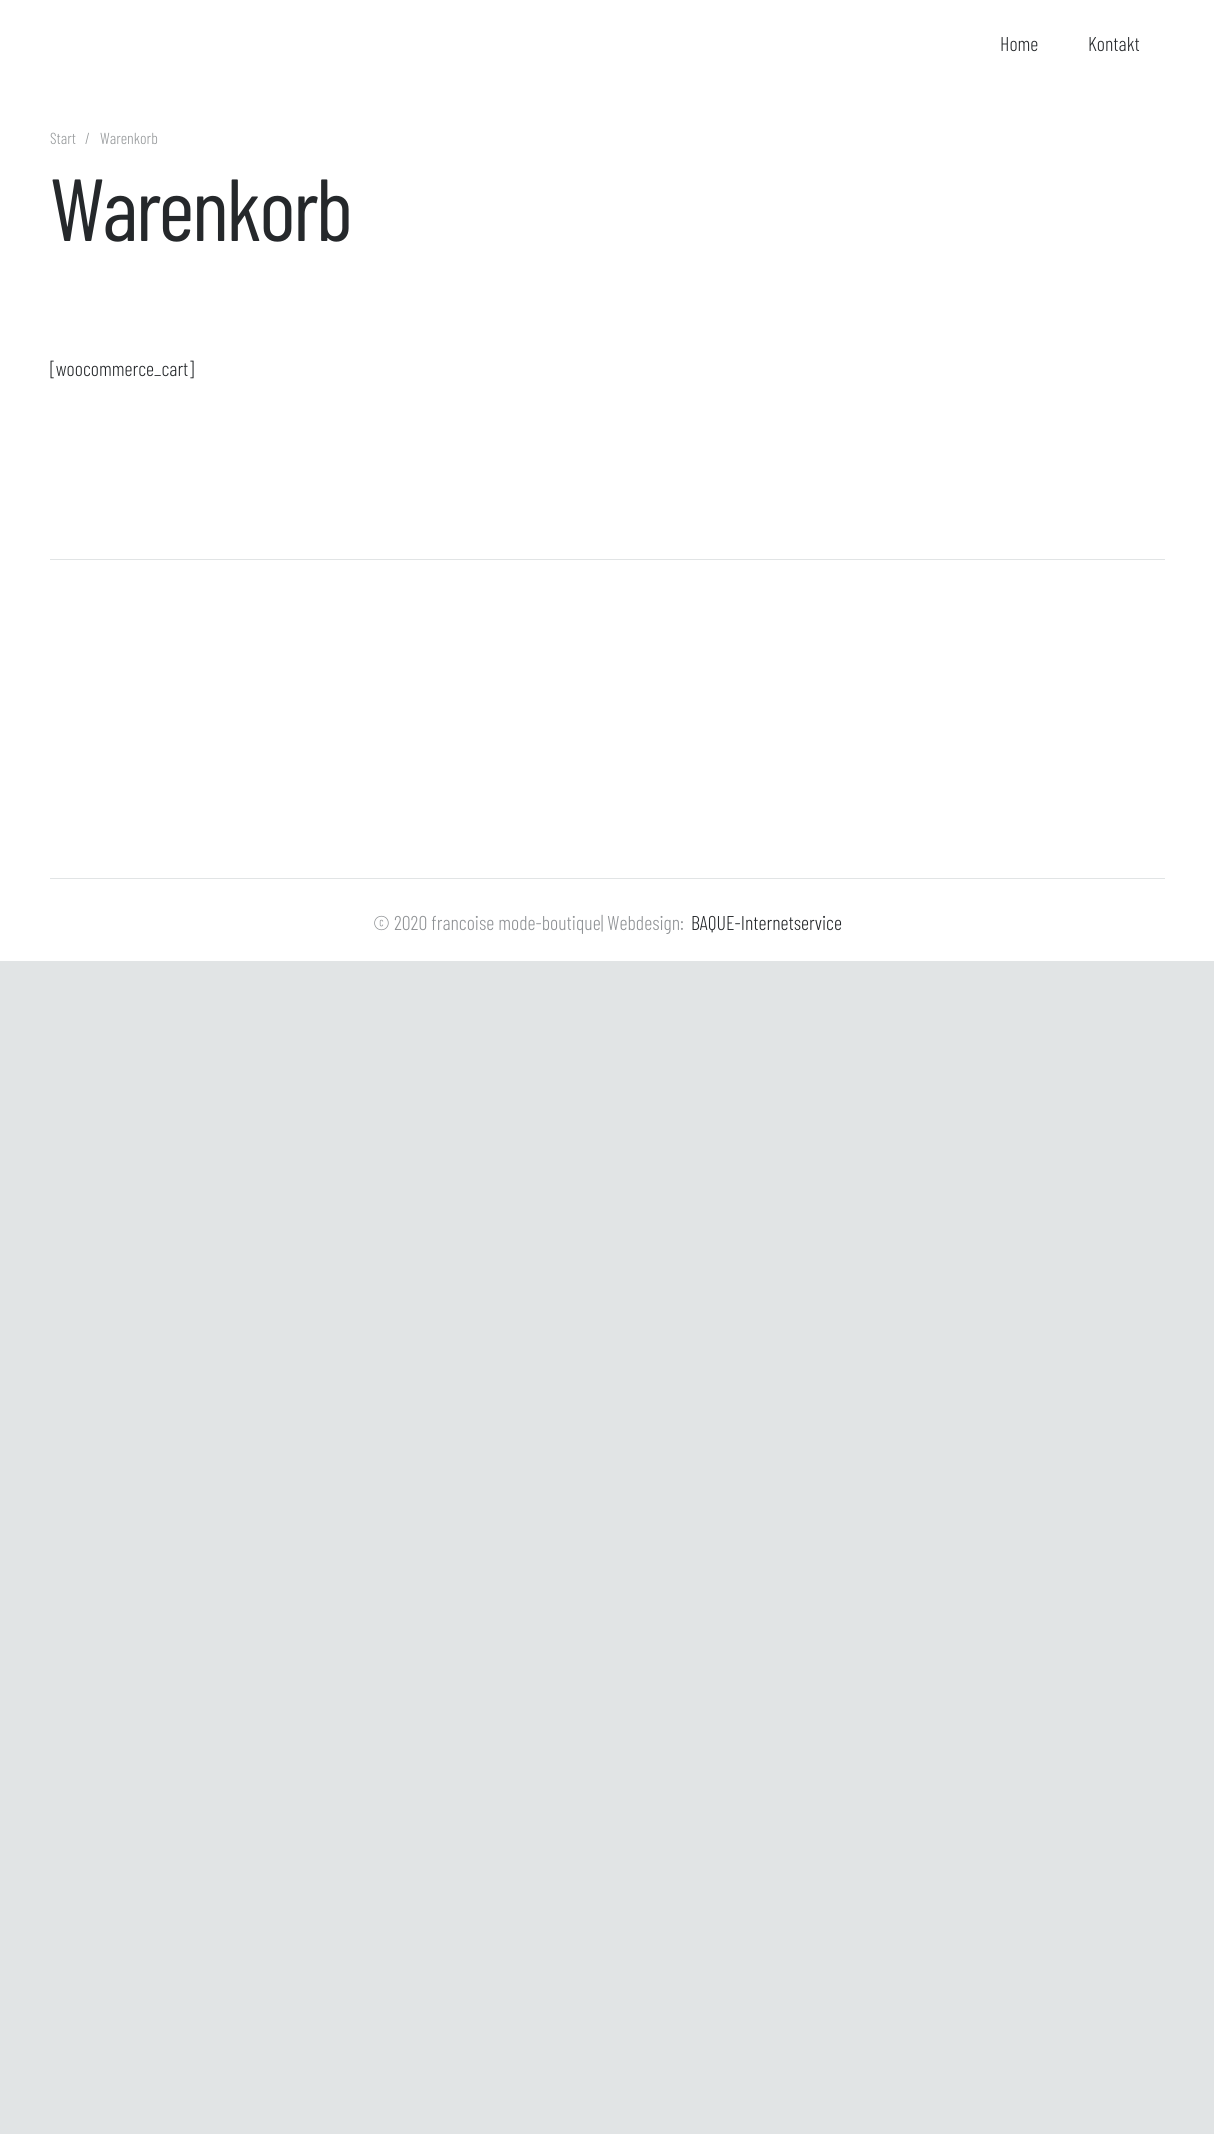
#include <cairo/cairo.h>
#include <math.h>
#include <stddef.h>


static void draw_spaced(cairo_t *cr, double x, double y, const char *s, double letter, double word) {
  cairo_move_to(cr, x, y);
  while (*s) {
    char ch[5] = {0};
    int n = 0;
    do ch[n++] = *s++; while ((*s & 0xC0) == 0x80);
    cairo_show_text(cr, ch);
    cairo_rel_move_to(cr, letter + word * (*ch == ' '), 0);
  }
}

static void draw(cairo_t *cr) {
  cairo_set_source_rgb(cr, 225 / 255.0, 228 / 255.0, 229 / 255.0);
  cairo_paint(cr);
  cairo_set_source_rgb(cr, 1, 1, 1);
  cairo_rectangle(cr, 0, 0, 1214, 961);
  cairo_fill(cr);
  cairo_set_source_rgb(cr, 225 / 255.0, 228 / 255.0, 229 / 255.0);
  cairo_rectangle(cr, 50, 559, 1115, 1);
  cairo_fill(cr);
  cairo_rectangle(cr, 50, 878, 1115, 1);
  cairo_fill(cr);
  cairo_select_font_face(cr, "Barlow Condensed Light", CAIRO_FONT_SLANT_NORMAL, CAIRO_FONT_WEIGHT_NORMAL);
  cairo_set_font_size(cr, 20);
  cairo_set_source_rgb(cr, 37 / 255.0, 40 / 255.0, 43 / 255.0);
  cairo_move_to(cr, 1000, 51);
  cairo_show_text(cr, "Home");
  cairo_move_to(cr, 1088, 51);
  cairo_show_text(cr, "Kontakt");
  cairo_set_font_size(cr, 16);
  cairo_set_source_rgb(cr, 148 / 255.0, 151 / 255.0, 153 / 255.0);
  cairo_move_to(cr, 50, 144);
  cairo_show_text(cr, "Start");
  cairo_move_to(cr, 85, 144);
  cairo_show_text(cr, "/");
  cairo_move_to(cr, 100, 144);
  cairo_show_text(cr, "Warenkorb");
  cairo_select_font_face(cr, "Barlow Condensed", CAIRO_FONT_SLANT_NORMAL, CAIRO_FONT_WEIGHT_NORMAL);
  cairo_set_font_size(cr, 88);
  cairo_set_source_rgb(cr, 37 / 255.0, 40 / 255.0, 43 / 255.0);
  draw_spaced(cr, 50, 241, "Warenkorb", -2.75, 0);
  cairo_select_font_face(cr, "Barlow Condensed Light", CAIRO_FONT_SLANT_NORMAL, CAIRO_FONT_WEIGHT_NORMAL);
  cairo_set_font_size(cr, 20);
  cairo_move_to(cr, 50, 376);
  cairo_show_text(cr, "[woocommerce_cart]");
  cairo_set_source_rgb(cr, 142 / 255.0, 145 / 255.0, 148 / 255.0);
  cairo_move_to(cr, 373, 930);
  cairo_show_text(cr, "© 2020 francoise mode-boutique| Webdesign:");
  cairo_set_source_rgb(cr, 37 / 255.0, 40 / 255.0, 43 / 255.0);
  cairo_move_to(cr, 691, 930);
  cairo_show_text(cr, "BAQUE-Internetservice");
}

int main(void) {
  cairo_surface_t *surface = cairo_image_surface_create(CAIRO_FORMAT_RGB24, 1214, 2134);
  cairo_t *cr = cairo_create(surface);
  cairo_font_options_t *options = cairo_font_options_create();
  cairo_font_options_set_hint_metrics(options, CAIRO_HINT_METRICS_OFF);
  cairo_font_options_set_hint_style(options, CAIRO_HINT_STYLE_NONE);
  cairo_set_font_options(cr, options);
  cairo_set_miter_limit(cr, 4);
  draw(cr);
  cairo_surface_write_to_png(surface, "out.png");
  cairo_font_options_destroy(options);
  cairo_destroy(cr);
  cairo_surface_destroy(surface);
  return 0;
}
